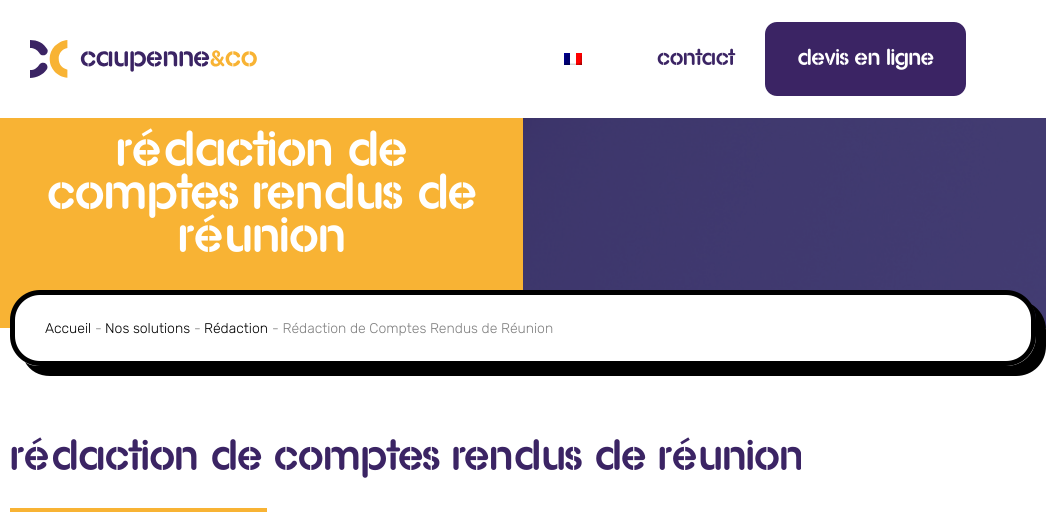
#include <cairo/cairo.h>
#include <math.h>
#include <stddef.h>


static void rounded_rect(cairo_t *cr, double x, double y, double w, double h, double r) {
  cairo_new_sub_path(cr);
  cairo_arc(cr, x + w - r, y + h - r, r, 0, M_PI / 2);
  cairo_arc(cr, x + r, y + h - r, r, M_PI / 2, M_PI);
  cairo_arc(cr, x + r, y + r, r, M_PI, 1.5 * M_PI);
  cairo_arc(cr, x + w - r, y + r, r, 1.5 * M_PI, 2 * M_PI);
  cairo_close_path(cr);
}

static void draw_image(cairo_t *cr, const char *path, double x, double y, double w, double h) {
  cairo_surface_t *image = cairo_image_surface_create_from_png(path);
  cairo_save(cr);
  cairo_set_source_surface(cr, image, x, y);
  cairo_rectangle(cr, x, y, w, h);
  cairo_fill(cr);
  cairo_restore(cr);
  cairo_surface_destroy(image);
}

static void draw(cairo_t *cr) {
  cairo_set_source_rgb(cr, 1, 1, 1);
  cairo_paint(cr);
  draw_image(cr, "images/1.png", 30, 40, 227, 38);
  draw_image(cr, "images/2.png", 564, 53, 18, 12);
  cairo_set_source_rgb(cr, 59 / 255.0, 36 / 255.0, 100 / 255.0);
  rounded_rect(cr, 765, 22, 201, 74, 12);
  cairo_fill(cr);
  cairo_set_source_rgb(cr, 248 / 255.0, 179 / 255.0, 52 / 255.0);
  cairo_rectangle(cr, 0, 118, 523, 210);
  cairo_fill(cr);
  cairo_set_source_rgb(cr, 59 / 255.0, 36 / 255.0, 100 / 255.0);
  cairo_rectangle(cr, 523, 118, 523, 210);
  cairo_fill(cr);
  draw_image(cr, "images/3.png", 523, 118, 523, 210);
  cairo_set_source_rgb(cr, 0, 0, 0);
  cairo_new_path(cr);
  cairo_move_to(cr, 25, 362);
  cairo_curve_to(cr, 30, 371, 39, 376, 50, 376);
  cairo_line_to(cr, 1016, 376);
  cairo_curve_to(cr, 1033, 376, 1046, 363, 1046, 346);
  cairo_line_to(cr, 1046, 330);
  cairo_curve_to(cr, 1046, 319, 1040, 309, 1031, 304);
  cairo_curve_to(cr, 1034, 309, 1036, 314, 1036, 320);
  cairo_line_to(cr, 1036, 336);
  cairo_curve_to(cr, 1036, 353, 1023, 366, 1006, 366);
  cairo_line_to(cr, 40, 366);
  cairo_curve_to(cr, 34, 366, 29, 365, 25, 362);
  cairo_close_path(cr);
  cairo_fill(cr);
  cairo_set_source_rgb(cr, 1, 1, 1);
  rounded_rect(cr, 12.5, 292.5, 1021, 71, 27.5);
  cairo_fill_preserve(cr);
  cairo_set_source_rgb(cr, 0, 0, 0);
  cairo_set_line_width(cr, 5);
  cairo_stroke(cr);
  cairo_set_source_rgb(cr, 248 / 255.0, 179 / 255.0, 52 / 255.0);
  cairo_rectangle(cr, 10, 508, 257, 4);
  cairo_fill(cr);
  cairo_select_font_face(cr, "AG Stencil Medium", CAIRO_FONT_SLANT_NORMAL, CAIRO_FONT_WEIGHT_NORMAL);
  cairo_set_font_size(cr, 22);
  cairo_set_source_rgb(cr, 59 / 255.0, 36 / 255.0, 100 / 255.0);
  cairo_move_to(cr, 657, 65);
  cairo_show_text(cr, "CONTACT");
  cairo_set_source_rgb(cr, 1, 1, 1);
  cairo_move_to(cr, 797, 65);
  cairo_show_text(cr, "DEVIS EN LIGNE");
  cairo_set_font_size(cr, 48);
  cairo_move_to(cr, 116, 166);
  cairo_show_text(cr, "Rédaction de");
  cairo_move_to(cr, 47, 209);
  cairo_show_text(cr, "Comptes Rendus de");
  cairo_move_to(cr, 178, 252);
  cairo_show_text(cr, "Réunion");
  cairo_select_font_face(cr, "Rubik Light", CAIRO_FONT_SLANT_NORMAL, CAIRO_FONT_WEIGHT_NORMAL);
  cairo_set_font_size(cr, 14);
  cairo_set_source_rgb(cr, 0, 0, 0);
  cairo_move_to(cr, 45, 333);
  cairo_show_text(cr, "Accueil");
  cairo_set_source_rgb(cr, 128 / 255.0, 128 / 255.0, 128 / 255.0);
  cairo_move_to(cr, 95, 333);
  cairo_show_text(cr, "-");
  cairo_set_source_rgb(cr, 0, 0, 0);
  cairo_move_to(cr, 105, 333);
  cairo_show_text(cr, "Nos solutions");
  cairo_set_source_rgb(cr, 128 / 255.0, 128 / 255.0, 128 / 255.0);
  cairo_move_to(cr, 194, 333);
  cairo_show_text(cr, "-");
  cairo_set_source_rgb(cr, 0, 0, 0);
  cairo_move_to(cr, 204, 333);
  cairo_show_text(cr, "Rédaction");
  cairo_set_source_rgb(cr, 128 / 255.0, 128 / 255.0, 128 / 255.0);
  cairo_move_to(cr, 272, 333);
  cairo_show_text(cr, "- Rédaction de Comptes Rendus de Réunion");
  cairo_select_font_face(cr, "AG Stencil Medium", CAIRO_FONT_SLANT_NORMAL, CAIRO_FONT_WEIGHT_NORMAL);
  cairo_set_font_size(cr, 41.6);
  cairo_set_source_rgb(cr, 59 / 255.0, 36 / 255.0, 100 / 255.0);
  cairo_move_to(cr, 10, 470);
  cairo_show_text(cr, "Rédaction de Comptes Rendus de Réunion");
}

int main(void) {
  cairo_surface_t *surface = cairo_image_surface_create(CAIRO_FORMAT_RGB24, 1046, 526);
  cairo_t *cr = cairo_create(surface);
  cairo_font_options_t *options = cairo_font_options_create();
  cairo_font_options_set_hint_metrics(options, CAIRO_HINT_METRICS_OFF);
  cairo_font_options_set_hint_style(options, CAIRO_HINT_STYLE_NONE);
  cairo_set_font_options(cr, options);
  cairo_set_miter_limit(cr, 4);
  draw(cr);
  cairo_surface_write_to_png(surface, "out.png");
  cairo_font_options_destroy(options);
  cairo_destroy(cr);
  cairo_surface_destroy(surface);
  return 0;
}
